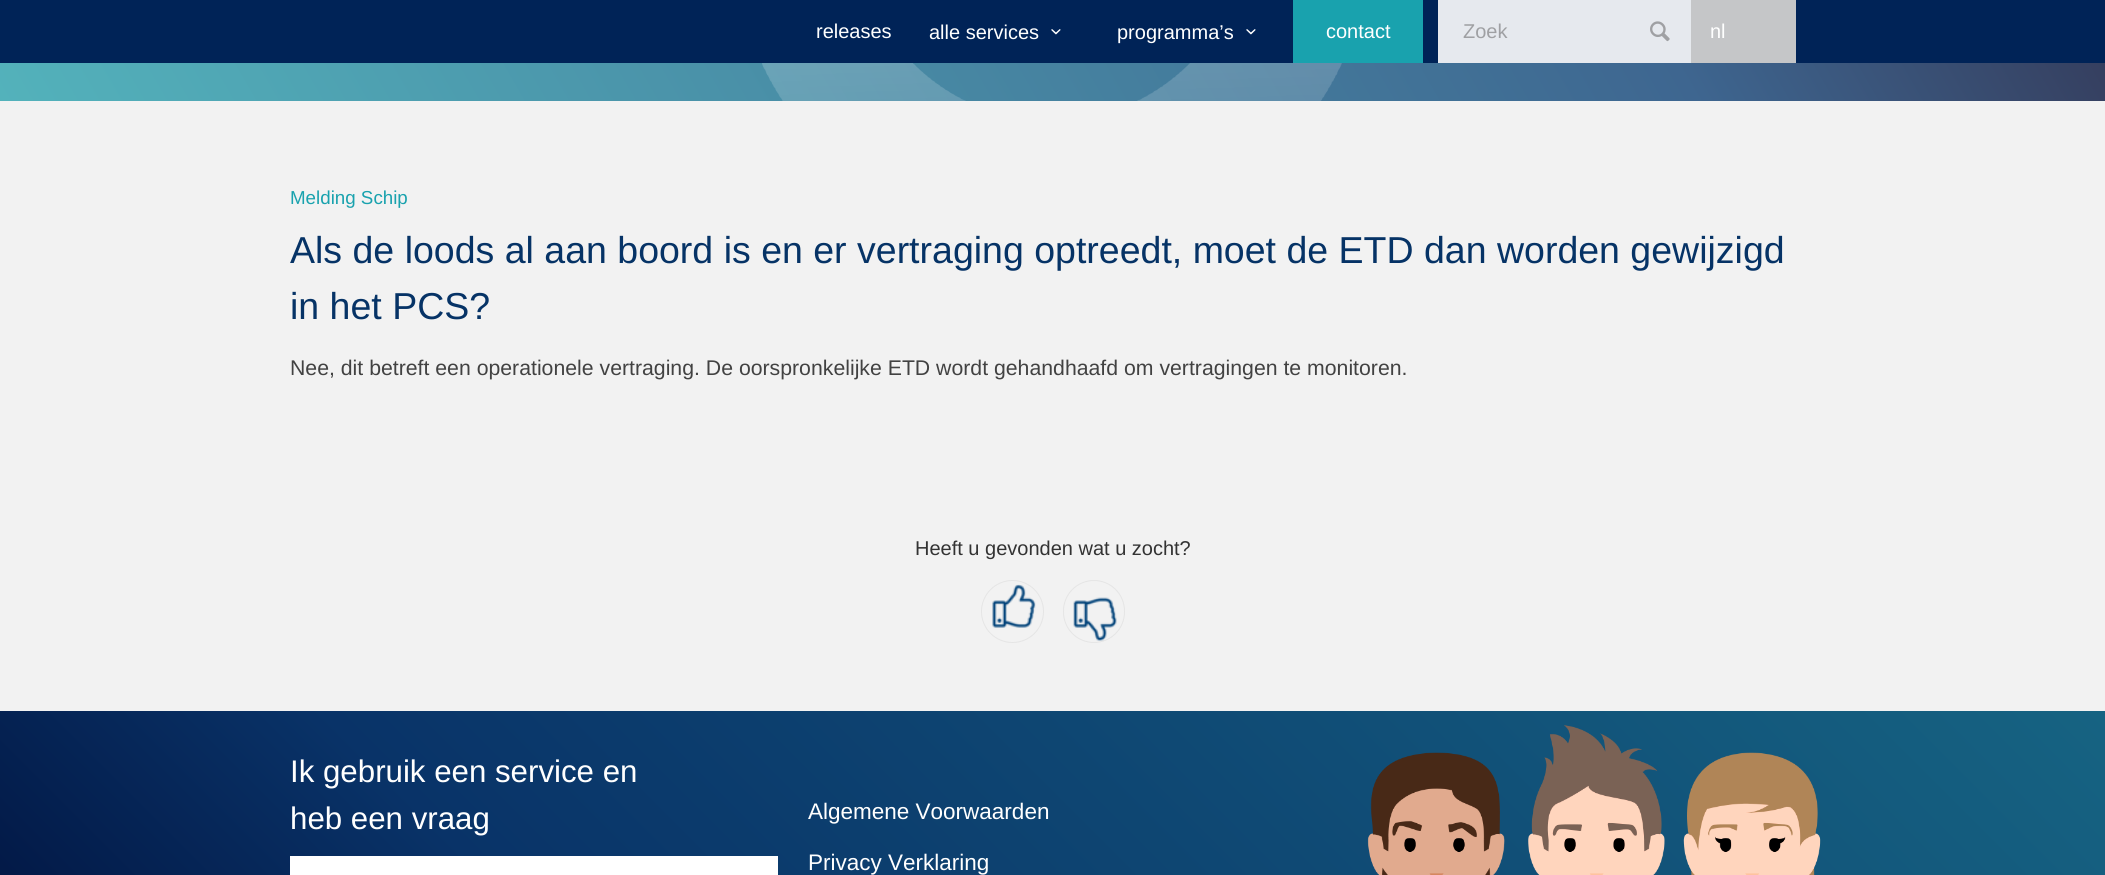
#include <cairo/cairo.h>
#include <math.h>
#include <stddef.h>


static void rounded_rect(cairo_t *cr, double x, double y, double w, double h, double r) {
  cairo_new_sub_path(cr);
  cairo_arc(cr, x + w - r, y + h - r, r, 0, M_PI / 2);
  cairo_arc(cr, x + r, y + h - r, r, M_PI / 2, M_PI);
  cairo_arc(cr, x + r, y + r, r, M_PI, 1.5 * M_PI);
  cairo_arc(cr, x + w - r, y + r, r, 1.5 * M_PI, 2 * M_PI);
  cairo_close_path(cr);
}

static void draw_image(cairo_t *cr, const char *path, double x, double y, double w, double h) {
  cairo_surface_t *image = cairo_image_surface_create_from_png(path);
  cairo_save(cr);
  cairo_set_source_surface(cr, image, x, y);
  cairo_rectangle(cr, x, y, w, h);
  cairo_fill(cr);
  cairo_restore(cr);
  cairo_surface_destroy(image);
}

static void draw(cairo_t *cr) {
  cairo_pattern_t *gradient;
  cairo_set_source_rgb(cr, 242 / 255.0, 242 / 255.0, 242 / 255.0);
  cairo_paint(cr);
  cairo_set_source_rgb(cr, 0, 35 / 255.0, 87 / 255.0);
  cairo_rectangle(cr, 0, 0, 2105, 63);
  cairo_fill(cr);
  draw_image(cr, "images/1.png", 1051, 29, 10, 6);
  draw_image(cr, "images/1.png", 1246, 29, 10, 6);
  cairo_set_source_rgb(cr, 25 / 255.0, 162 / 255.0, 174 / 255.0);
  cairo_rectangle(cr, 1293, 0, 130, 63);
  cairo_fill(cr);
  cairo_set_source_rgb(cr, 230 / 255.0, 233 / 255.0, 238 / 255.0);
  cairo_rectangle(cr, 1438, 0, 253, 63);
  cairo_fill(cr);
  draw_image(cr, "images/2.png", 1650, 21, 20, 21);
  cairo_set_source_rgb(cr, 197 / 255.0, 198 / 255.0, 200 / 255.0);
  cairo_rectangle(cr, 1691, 0, 105, 63);
  cairo_fill(cr);
  gradient = cairo_pattern_create_linear(1912, -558, 193, 435);
  cairo_pattern_add_color_stop_rgba(gradient, 0, 50 / 255.0, 48 / 255.0, 77 / 255.0, 1);
  cairo_pattern_add_color_stop_rgba(gradient, 0.26, 62 / 255.0, 102 / 255.0, 144 / 255.0, 1);
  cairo_pattern_add_color_stop_rgba(gradient, 1, 83 / 255.0, 178 / 255.0, 187 / 255.0, 1);
  cairo_set_source(cr, gradient);
  cairo_pattern_destroy(gradient);
  cairo_rectangle(cr, 0, 63, 2105, 38);
  cairo_fill(cr);
  draw_image(cr, "images/3.png", 762, 63, 580, 38);
  cairo_arc(cr, 1012.5, 611.5, 31, 0, 2 * M_PI);
  cairo_set_source_rgb(cr, 229 / 255.0, 229 / 255.0, 229 / 255.0);
  cairo_set_line_width(cr, 1);
  cairo_stroke(cr);
  draw_image(cr, "images/4.png", 992, 584, 44, 44);
  rounded_rect(cr, 1063.5, 580.5, 61, 62, 30.5);
  cairo_stroke(cr);
  draw_image(cr, "images/5.png", 1073, 597, 44, 44);
  gradient = cairo_pattern_create_linear(450, 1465, 1655, 261);
  cairo_pattern_add_color_stop_rgba(gradient, 0, 1 / 255.0, 18 / 255.0, 62 / 255.0, 1);
  cairo_pattern_add_color_stop_rgba(gradient, 0.26, 9 / 255.0, 51 / 255.0, 104 / 255.0, 1);
  cairo_pattern_add_color_stop_rgba(gradient, 1, 22 / 255.0, 99 / 255.0, 130 / 255.0, 1);
  cairo_set_source(cr, gradient);
  cairo_pattern_destroy(gradient);
  cairo_rectangle(cr, 0, 711, 2105, 164);
  cairo_fill(cr);
  draw_image(cr, "images/6.png", 1367, 725, 454, 150);
  cairo_set_source_rgb(cr, 1, 1, 1);
  cairo_rectangle(cr, 290, 856, 488, 19);
  cairo_fill(cr);
  cairo_select_font_face(cr, "Liberation Sans", CAIRO_FONT_SLANT_NORMAL, CAIRO_FONT_WEIGHT_NORMAL);
  cairo_set_font_size(cr, 20);
  cairo_move_to(cr, 816, 38);
  cairo_show_text(cr, "releases");
  cairo_move_to(cr, 929, 39);
  cairo_show_text(cr, "alle services");
  cairo_move_to(cr, 1117, 39);
  cairo_show_text(cr, "programma’s");
  cairo_move_to(cr, 1326, 38);
  cairo_show_text(cr, "contact");
  cairo_set_source_rgb(cr, 159 / 255.0, 160 / 255.0, 163 / 255.0);
  cairo_move_to(cr, 1463, 38);
  cairo_show_text(cr, "Zoek");
  cairo_set_source_rgb(cr, 1, 1, 1);
  cairo_move_to(cr, 1710, 38);
  cairo_show_text(cr, "nl");
  cairo_set_font_size(cr, 18.75);
  cairo_set_source_rgb(cr, 25 / 255.0, 162 / 255.0, 174 / 255.0);
  cairo_move_to(cr, 290, 204);
  cairo_show_text(cr, "Melding Schip");
  cairo_set_font_size(cr, 37.5);
  cairo_set_source_rgb(cr, 6 / 255.0, 51 / 255.0, 102 / 255.0);
  cairo_move_to(cr, 290, 263);
  cairo_show_text(cr, "Als de loods al aan boord is en er vertraging optreedt, moet de ETD dan worden gewijzigd");
  cairo_move_to(cr, 290, 319);
  cairo_show_text(cr, "in het PCS?");
  cairo_set_font_size(cr, 21.25);
  cairo_set_source_rgb(cr, 66 / 255.0, 66 / 255.0, 66 / 255.0);
  cairo_move_to(cr, 290, 375);
  cairo_show_text(cr, "Nee, dit betreft een operationele vertraging. De oorspronkelijke ETD wordt gehandhaafd om vertragingen te monitoren.");
  cairo_set_font_size(cr, 20);
  cairo_set_source_rgb(cr, 51 / 255.0, 51 / 255.0, 51 / 255.0);
  cairo_move_to(cr, 915, 555);
  cairo_show_text(cr, "Heeft u gevonden wat u zocht?");
  cairo_set_font_size(cr, 31.25);
  cairo_set_source_rgb(cr, 1, 1, 1);
  cairo_move_to(cr, 290, 782);
  cairo_show_text(cr, "Ik gebruik een service en");
  cairo_move_to(cr, 290, 829);
  cairo_show_text(cr, "heb een vraag");
  cairo_set_font_size(cr, 22.5);
  cairo_move_to(cr, 808, 819);
  cairo_show_text(cr, "Algemene Voorwaarden");
  cairo_move_to(cr, 808, 870);
  cairo_show_text(cr, "Privacy Verklaring");
}

int main(void) {
  cairo_surface_t *surface = cairo_image_surface_create(CAIRO_FORMAT_RGB24, 2105, 875);
  cairo_t *cr = cairo_create(surface);
  cairo_font_options_t *options = cairo_font_options_create();
  cairo_font_options_set_hint_metrics(options, CAIRO_HINT_METRICS_OFF);
  cairo_font_options_set_hint_style(options, CAIRO_HINT_STYLE_NONE);
  cairo_set_font_options(cr, options);
  cairo_set_miter_limit(cr, 4);
  draw(cr);
  cairo_surface_write_to_png(surface, "out.png");
  cairo_font_options_destroy(options);
  cairo_destroy(cr);
  cairo_surface_destroy(surface);
  return 0;
}
